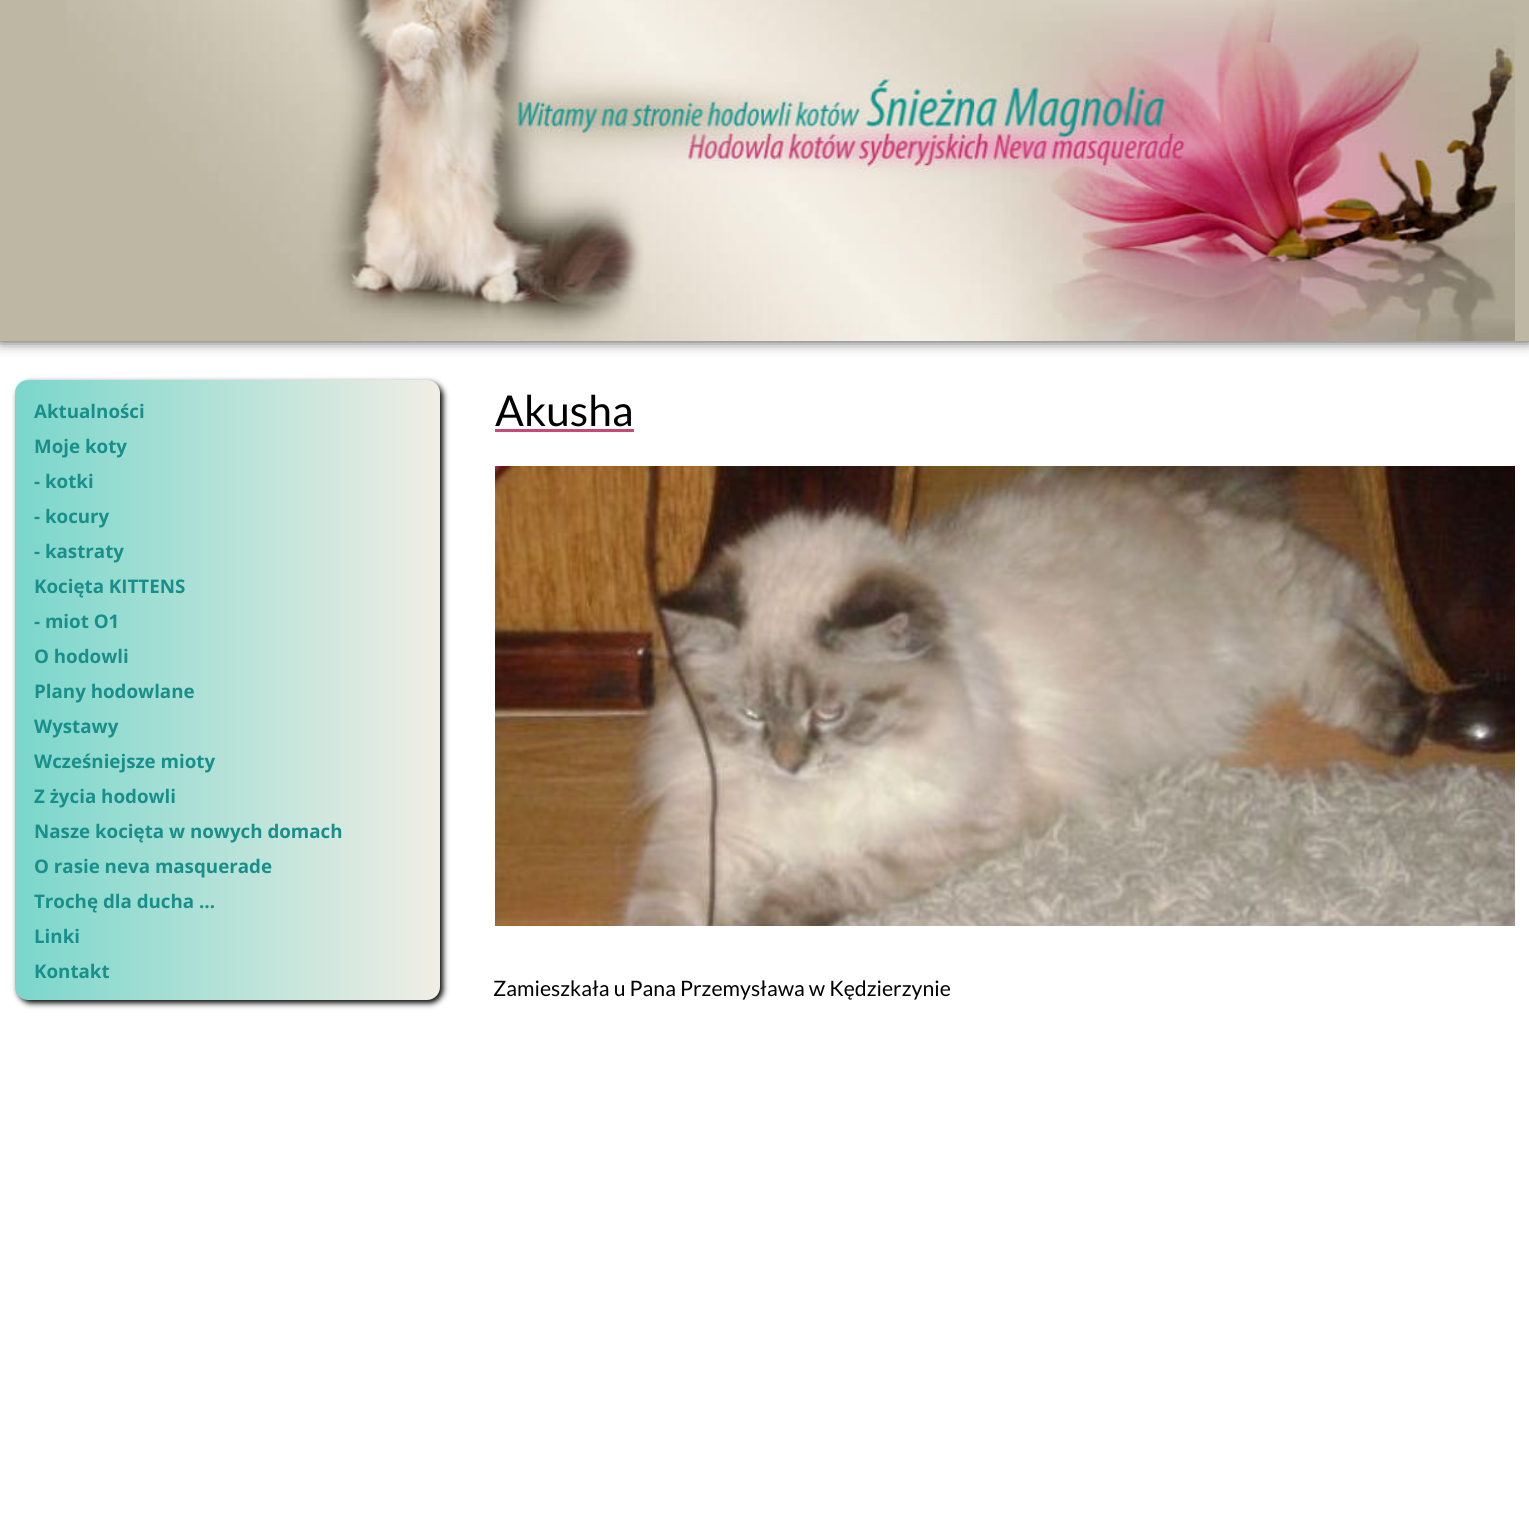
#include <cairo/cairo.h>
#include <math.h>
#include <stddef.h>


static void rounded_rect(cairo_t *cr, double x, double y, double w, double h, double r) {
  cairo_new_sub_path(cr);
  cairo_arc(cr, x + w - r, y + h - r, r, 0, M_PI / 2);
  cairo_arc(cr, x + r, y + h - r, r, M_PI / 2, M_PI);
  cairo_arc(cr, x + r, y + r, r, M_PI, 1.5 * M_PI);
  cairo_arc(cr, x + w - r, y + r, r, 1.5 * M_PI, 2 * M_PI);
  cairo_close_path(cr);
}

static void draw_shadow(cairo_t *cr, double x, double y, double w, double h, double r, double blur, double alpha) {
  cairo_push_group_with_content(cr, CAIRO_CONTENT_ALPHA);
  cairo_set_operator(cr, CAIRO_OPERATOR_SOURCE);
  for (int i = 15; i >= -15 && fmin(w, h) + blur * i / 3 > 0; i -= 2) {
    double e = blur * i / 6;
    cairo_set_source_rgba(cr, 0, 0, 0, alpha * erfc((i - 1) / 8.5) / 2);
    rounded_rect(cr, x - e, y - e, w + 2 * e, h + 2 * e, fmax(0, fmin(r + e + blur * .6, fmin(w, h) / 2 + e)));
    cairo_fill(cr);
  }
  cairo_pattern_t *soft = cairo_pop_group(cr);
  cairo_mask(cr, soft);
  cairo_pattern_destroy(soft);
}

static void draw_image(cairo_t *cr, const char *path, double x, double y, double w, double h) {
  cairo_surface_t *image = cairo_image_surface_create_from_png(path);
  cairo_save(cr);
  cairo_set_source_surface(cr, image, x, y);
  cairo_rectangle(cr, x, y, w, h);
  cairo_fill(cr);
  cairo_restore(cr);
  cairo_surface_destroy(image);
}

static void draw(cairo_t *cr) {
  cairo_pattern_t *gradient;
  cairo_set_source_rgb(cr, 1, 1, 1);
  cairo_paint(cr);
  cairo_set_source_rgb(cr, 0, 0, 0);
  draw_shadow(cr, 0, -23, 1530, 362, 0, 7.5, 1);
  cairo_set_source_rgb(cr, 190 / 255.0, 183 / 255.0, 164 / 255.0);
  cairo_rectangle(cr, 0, 0, 1529, 341);
  cairo_fill(cr);
  draw_image(cr, "images/1.png", 67, 0, 1448, 341);
  cairo_set_source_rgb(cr, 0, 0, 0);
  draw_shadow(cr, 18, 383, 425, 620, 13, 3, 1);
  gradient = cairo_pattern_create_linear(15, 690, 440, 690);
  cairo_pattern_add_color_stop_rgba(gradient, 0, 122 / 255.0, 214 / 255.0, 203 / 255.0, 1);
  cairo_pattern_add_color_stop_rgba(gradient, 1, 241 / 255.0, 238 / 255.0, 229 / 255.0, 1);
  cairo_set_source(cr, gradient);
  cairo_pattern_destroy(gradient);
  rounded_rect(cr, 15, 380, 425, 620, 13);
  cairo_fill(cr);
  cairo_set_source_rgb(cr, 200 / 255.0, 72 / 255.0, 118 / 255.0);
  cairo_rectangle(cr, 495, 429, 139, 3);
  cairo_fill(cr);
  draw_image(cr, "images/2.png", 495, 466, 1020, 460);
  cairo_select_font_face(cr, "Open Sans", CAIRO_FONT_SLANT_NORMAL, CAIRO_FONT_WEIGHT_BOLD);
  cairo_set_font_size(cr, 18.75);
  cairo_set_source_rgb(cr, 25 / 255.0, 143 / 255.0, 139 / 255.0);
  cairo_move_to(cr, 34, 418);
  cairo_show_text(cr, "Aktualności");
  cairo_move_to(cr, 34, 453);
  cairo_show_text(cr, "Moje koty");
  cairo_move_to(cr, 34, 488);
  cairo_show_text(cr, "- kotki");
  cairo_move_to(cr, 34, 523);
  cairo_show_text(cr, "- kocury");
  cairo_move_to(cr, 34, 558);
  cairo_show_text(cr, "- kastraty");
  cairo_move_to(cr, 34, 593);
  cairo_show_text(cr, "Kocięta KITTENS");
  cairo_move_to(cr, 34, 628);
  cairo_show_text(cr, "- miot O1");
  cairo_move_to(cr, 34, 663);
  cairo_show_text(cr, "O hodowli");
  cairo_move_to(cr, 34, 698);
  cairo_show_text(cr, "Plany hodowlane");
  cairo_move_to(cr, 34, 733);
  cairo_show_text(cr, "Wystawy");
  cairo_move_to(cr, 34, 768);
  cairo_show_text(cr, "Wcześniejsze mioty");
  cairo_move_to(cr, 34, 803);
  cairo_show_text(cr, "Z życia hodowli");
  cairo_move_to(cr, 34, 838);
  cairo_show_text(cr, "Nasze kocięta w nowych domach");
  cairo_move_to(cr, 34, 873);
  cairo_show_text(cr, "O rasie neva masquerade");
  cairo_move_to(cr, 34, 908);
  cairo_show_text(cr, "Trochę dla ducha …");
  cairo_move_to(cr, 34, 943);
  cairo_show_text(cr, "Linki");
  cairo_move_to(cr, 34, 978);
  cairo_show_text(cr, "Kontakt");
  cairo_select_font_face(cr, "Lato", CAIRO_FONT_SLANT_NORMAL, CAIRO_FONT_WEIGHT_NORMAL);
  cairo_set_font_size(cr, 42.5);
  cairo_set_source_rgb(cr, 0, 0, 0);
  cairo_move_to(cr, 495, 426);
  cairo_show_text(cr, "Akusha");
  cairo_set_font_size(cr, 21.25);
  cairo_move_to(cr, 493, 996);
  cairo_show_text(cr, "Zamieszkała u Pana Przemysława w Kędzierzynie");
}

int main(void) {
  cairo_surface_t *surface = cairo_image_surface_create(CAIRO_FORMAT_RGB24, 1529, 1524);
  cairo_t *cr = cairo_create(surface);
  cairo_font_options_t *options = cairo_font_options_create();
  cairo_font_options_set_hint_metrics(options, CAIRO_HINT_METRICS_OFF);
  cairo_font_options_set_hint_style(options, CAIRO_HINT_STYLE_NONE);
  cairo_set_font_options(cr, options);
  cairo_set_miter_limit(cr, 4);
  draw(cr);
  cairo_surface_write_to_png(surface, "out.png");
  cairo_font_options_destroy(options);
  cairo_destroy(cr);
  cairo_surface_destroy(surface);
  return 0;
}
